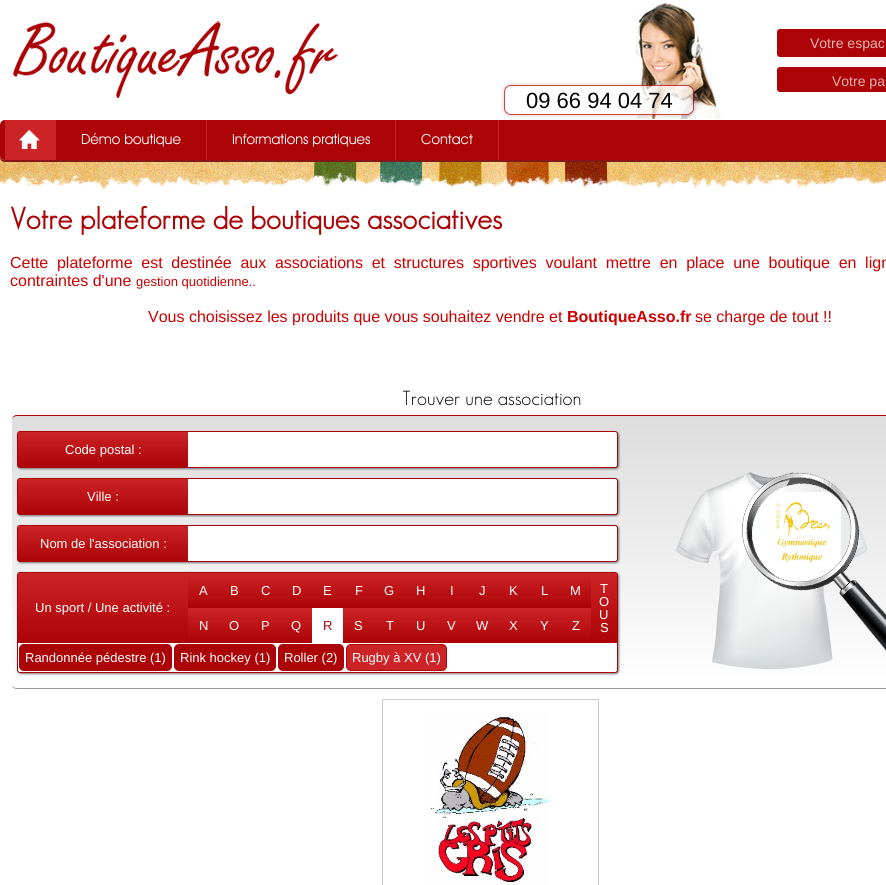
#include <cairo/cairo.h>
#include <math.h>
#include <stddef.h>


static void draw_spaced(cairo_t *cr, double x, double y, const char *s, double letter, double word) {
  cairo_move_to(cr, x, y);
  while (*s) {
    char ch[5] = {0};
    int n = 0;
    do ch[n++] = *s++; while ((*s & 0xC0) == 0x80);
    cairo_show_text(cr, ch);
    cairo_rel_move_to(cr, letter + word * (*ch == ' '), 0);
  }
}

static void rounded_rect(cairo_t *cr, double x, double y, double w, double h, double r) {
  cairo_new_sub_path(cr);
  cairo_arc(cr, x + w - r, y + h - r, r, 0, M_PI / 2);
  cairo_arc(cr, x + r, y + h - r, r, M_PI / 2, M_PI);
  cairo_arc(cr, x + r, y + r, r, M_PI, 1.5 * M_PI);
  cairo_arc(cr, x + w - r, y + r, r, 1.5 * M_PI, 2 * M_PI);
  cairo_close_path(cr);
}

static void draw_shadow(cairo_t *cr, double x, double y, double w, double h, double r, double blur, double alpha) {
  cairo_push_group_with_content(cr, CAIRO_CONTENT_ALPHA);
  cairo_set_operator(cr, CAIRO_OPERATOR_SOURCE);
  for (int i = 15; i >= -15 && fmin(w, h) + blur * i / 3 > 0; i -= 2) {
    double e = blur * i / 6;
    cairo_set_source_rgba(cr, 0, 0, 0, alpha * erfc((i - 1) / 8.5) / 2);
    rounded_rect(cr, x - e, y - e, w + 2 * e, h + 2 * e, fmax(0, fmin(r + e + blur * .6, fmin(w, h) / 2 + e)));
    cairo_fill(cr);
  }
  cairo_pattern_t *soft = cairo_pop_group(cr);
  cairo_mask(cr, soft);
  cairo_pattern_destroy(soft);
}

static void draw_image(cairo_t *cr, const char *path, double x, double y, double w, double h) {
  cairo_surface_t *image = cairo_image_surface_create_from_png(path);
  cairo_save(cr);
  cairo_set_source_surface(cr, image, x, y);
  cairo_rectangle(cr, x, y, w, h);
  cairo_fill(cr);
  cairo_restore(cr);
  cairo_surface_destroy(image);
}

static void draw(cairo_t *cr) {
  cairo_pattern_t *gradient;
  cairo_set_source_rgb(cr, 1, 1, 1);
  cairo_paint(cr);
  draw_image(cr, "images/1.png", 0, 155, 886, 34);
  draw_image(cr, "images/2.png", 0, 0, 886, 125);
  draw_image(cr, "images/3.png", 0, 169, 886, 31);
  draw_image(cr, "images/4.png", 12, 21, 326, 77);
  cairo_set_source_rgb(cr, 171 / 255.0, 3 / 255.0, 6 / 255.0);
  rounded_rect(cr, 777.5, 29.5, 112, 27, 2.5);
  cairo_fill_preserve(cr);
  cairo_set_line_width(cr, 1);
  cairo_stroke(cr);
  rounded_rect(cr, 777.5, 67.5, 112, 24, 2.5);
  cairo_fill_preserve(cr);
  cairo_stroke(cr);
  draw_image(cr, "images/5.png", 500, 0, 221, 120);
  cairo_set_source_rgb(cr, 133 / 255.0, 23 / 255.0, 23 / 255.0);
  cairo_new_path(cr);
  cairo_move_to(cr, 0, 155);
  cairo_line_to(cr, 0, 157);
  cairo_curve_to(cr, 0, 160, 2, 162, 5, 162);
  cairo_line_to(cr, 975, 162);
  cairo_curve_to(cr, 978, 162, 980, 160, 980, 157);
  cairo_line_to(cr, 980, 155);
  cairo_curve_to(cr, 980, 158, 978, 160, 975, 160);
  cairo_line_to(cr, 5, 160);
  cairo_curve_to(cr, 2, 160, 0, 158, 0, 155);
  cairo_close_path(cr);
  cairo_fill(cr);
  cairo_set_source_rgb(cr, 171 / 255.0, 3 / 255.0, 6 / 255.0);
  rounded_rect(cr, 0, 120, 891, 40, 5);
  cairo_fill(cr);
  cairo_set_source_rgb(cr, 203 / 255.0, 35 / 255.0, 38 / 255.0);
  cairo_rectangle(cr, 5, 120, 51, 40);
  cairo_fill(cr);
  draw_image(cr, "images/6.png", 19, 130, 21, 19);
  cairo_rectangle(cr, 206, 120, 1, 40);
  cairo_fill(cr);
  cairo_rectangle(cr, 395, 120, 1, 40);
  cairo_fill(cr);
  cairo_rectangle(cr, 498, 120, 1, 40);
  cairo_fill(cr);
  cairo_save(cr);
  rounded_rect(cr, 12, 415, 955, 274, 5);
  cairo_clip(cr);
  gradient = cairo_pattern_create_linear(490, 416, 490, 688);
  cairo_pattern_add_color_stop_rgba(gradient, 0, 221 / 255.0, 221 / 255.0, 221 / 255.0, 1);
  cairo_pattern_add_color_stop_rgba(gradient, 1, 1, 1, 1, 1);
  cairo_set_source(cr, gradient);
  cairo_pattern_destroy(gradient);
  cairo_rectangle(cr, 12, 416, 874, 272);
  cairo_fill(cr);
  cairo_restore(cr);
  cairo_set_source_rgb(cr, 171 / 255.0, 3 / 255.0, 6 / 255.0);
  cairo_new_path(cr);
  cairo_move_to(cr, 17, 415);
  cairo_curve_to(cr, 14, 415, 12, 417, 12, 420);
  cairo_curve_to(cr, 12, 418, 14, 416, 17, 416);
  cairo_line_to(cr, 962, 416);
  cairo_curve_to(cr, 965, 416, 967, 418, 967, 420);
  cairo_curve_to(cr, 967, 417, 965, 415, 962, 415);
  cairo_close_path(cr);
  cairo_fill(cr);
  cairo_set_source_rgb(cr, 153 / 255.0, 153 / 255.0, 153 / 255.0);
  cairo_new_path(cr);
  cairo_move_to(cr, 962, 689);
  cairo_curve_to(cr, 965, 689, 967, 687, 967, 684);
  cairo_curve_to(cr, 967, 686, 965, 688, 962, 688);
  cairo_line_to(cr, 17, 688);
  cairo_curve_to(cr, 14, 688, 12, 686, 12, 684);
  cairo_curve_to(cr, 12, 687, 14, 689, 17, 689);
  cairo_close_path(cr);
  cairo_fill(cr);
  cairo_set_source_rgb(cr, 0, 0, 0);
  draw_shadow(cr, 18, 432, 601, 37, 3, 1, 0.5);
  cairo_set_source_rgb(cr, 1, 1, 1);
  rounded_rect(cr, 17.5, 431.5, 600, 36, 2.5);
  cairo_fill_preserve(cr);
  cairo_set_source_rgb(cr, 171 / 255.0, 3 / 255.0, 6 / 255.0);
  cairo_stroke(cr);
  gradient = cairo_pattern_create_linear(103, 432, 103, 467);
  cairo_pattern_add_color_stop_rgba(gradient, 0, 203 / 255.0, 35 / 255.0, 38 / 255.0, 1);
  cairo_pattern_add_color_stop_rgba(gradient, 1, 171 / 255.0, 3 / 255.0, 6 / 255.0, 1);
  cairo_set_source(cr, gradient);
  cairo_pattern_destroy(gradient);
  cairo_rectangle(cr, 18, 432, 170, 35);
  cairo_fill(cr);
  cairo_set_source_rgb(cr, 0, 0, 0);
  draw_shadow(cr, 18, 479, 601, 37, 3, 1, 0.5);
  cairo_set_source_rgb(cr, 1, 1, 1);
  rounded_rect(cr, 17.5, 478.5, 600, 36, 2.5);
  cairo_fill_preserve(cr);
  cairo_set_source_rgb(cr, 171 / 255.0, 3 / 255.0, 6 / 255.0);
  cairo_stroke(cr);
  gradient = cairo_pattern_create_linear(103, 479, 103, 514);
  cairo_pattern_add_color_stop_rgba(gradient, 0, 203 / 255.0, 35 / 255.0, 38 / 255.0, 1);
  cairo_pattern_add_color_stop_rgba(gradient, 1, 171 / 255.0, 3 / 255.0, 6 / 255.0, 1);
  cairo_set_source(cr, gradient);
  cairo_pattern_destroy(gradient);
  cairo_rectangle(cr, 18, 479, 170, 35);
  cairo_fill(cr);
  cairo_set_source_rgb(cr, 0, 0, 0);
  draw_shadow(cr, 18, 526, 601, 37, 3, 1, 0.5);
  cairo_set_source_rgb(cr, 1, 1, 1);
  rounded_rect(cr, 17.5, 525.5, 600, 36, 2.5);
  cairo_fill_preserve(cr);
  cairo_set_source_rgb(cr, 171 / 255.0, 3 / 255.0, 6 / 255.0);
  cairo_stroke(cr);
  gradient = cairo_pattern_create_linear(103, 526, 103, 561);
  cairo_pattern_add_color_stop_rgba(gradient, 0, 203 / 255.0, 35 / 255.0, 38 / 255.0, 1);
  cairo_pattern_add_color_stop_rgba(gradient, 1, 171 / 255.0, 3 / 255.0, 6 / 255.0, 1);
  cairo_set_source(cr, gradient);
  cairo_pattern_destroy(gradient);
  cairo_rectangle(cr, 18, 526, 170, 35);
  cairo_fill(cr);
  cairo_set_source_rgb(cr, 0, 0, 0);
  draw_shadow(cr, 18, 573, 601, 101, 3, 1, 0.5);
  cairo_set_source_rgb(cr, 1, 1, 1);
  rounded_rect(cr, 17.5, 572.5, 600, 100, 2.5);
  cairo_fill_preserve(cr);
  cairo_set_source_rgb(cr, 171 / 255.0, 3 / 255.0, 6 / 255.0);
  cairo_stroke(cr);
  gradient = cairo_pattern_create_linear(204, 573, 204, 608);
  cairo_pattern_add_color_stop_rgba(gradient, 0, 203 / 255.0, 35 / 255.0, 38 / 255.0, 1);
  cairo_pattern_add_color_stop_rgba(gradient, 1, 171 / 255.0, 3 / 255.0, 6 / 255.0, 1);
  cairo_set_source(cr, gradient);
  cairo_pattern_destroy(gradient);
  cairo_rectangle(cr, 188, 573, 31, 35);
  cairo_fill(cr);
  gradient = cairo_pattern_create_linear(235, 573, 235, 608);
  cairo_pattern_add_color_stop_rgba(gradient, 0, 203 / 255.0, 35 / 255.0, 38 / 255.0, 1);
  cairo_pattern_add_color_stop_rgba(gradient, 1, 171 / 255.0, 3 / 255.0, 6 / 255.0, 1);
  cairo_set_source(cr, gradient);
  cairo_pattern_destroy(gradient);
  cairo_rectangle(cr, 219, 573, 31, 35);
  cairo_fill(cr);
  gradient = cairo_pattern_create_linear(266, 573, 266, 608);
  cairo_pattern_add_color_stop_rgba(gradient, 0, 203 / 255.0, 35 / 255.0, 38 / 255.0, 1);
  cairo_pattern_add_color_stop_rgba(gradient, 1, 171 / 255.0, 3 / 255.0, 6 / 255.0, 1);
  cairo_set_source(cr, gradient);
  cairo_pattern_destroy(gradient);
  cairo_rectangle(cr, 250, 573, 31, 35);
  cairo_fill(cr);
  gradient = cairo_pattern_create_linear(297, 573, 297, 608);
  cairo_pattern_add_color_stop_rgba(gradient, 0, 203 / 255.0, 35 / 255.0, 38 / 255.0, 1);
  cairo_pattern_add_color_stop_rgba(gradient, 1, 171 / 255.0, 3 / 255.0, 6 / 255.0, 1);
  cairo_set_source(cr, gradient);
  cairo_pattern_destroy(gradient);
  cairo_rectangle(cr, 281, 573, 31, 35);
  cairo_fill(cr);
  gradient = cairo_pattern_create_linear(328, 573, 328, 608);
  cairo_pattern_add_color_stop_rgba(gradient, 0, 203 / 255.0, 35 / 255.0, 38 / 255.0, 1);
  cairo_pattern_add_color_stop_rgba(gradient, 1, 171 / 255.0, 3 / 255.0, 6 / 255.0, 1);
  cairo_set_source(cr, gradient);
  cairo_pattern_destroy(gradient);
  cairo_rectangle(cr, 312, 573, 31, 35);
  cairo_fill(cr);
  gradient = cairo_pattern_create_linear(359, 573, 359, 608);
  cairo_pattern_add_color_stop_rgba(gradient, 0, 203 / 255.0, 35 / 255.0, 38 / 255.0, 1);
  cairo_pattern_add_color_stop_rgba(gradient, 1, 171 / 255.0, 3 / 255.0, 6 / 255.0, 1);
  cairo_set_source(cr, gradient);
  cairo_pattern_destroy(gradient);
  cairo_rectangle(cr, 343, 573, 31, 35);
  cairo_fill(cr);
  gradient = cairo_pattern_create_linear(390, 573, 390, 608);
  cairo_pattern_add_color_stop_rgba(gradient, 0, 203 / 255.0, 35 / 255.0, 38 / 255.0, 1);
  cairo_pattern_add_color_stop_rgba(gradient, 1, 171 / 255.0, 3 / 255.0, 6 / 255.0, 1);
  cairo_set_source(cr, gradient);
  cairo_pattern_destroy(gradient);
  cairo_rectangle(cr, 374, 573, 31, 35);
  cairo_fill(cr);
  gradient = cairo_pattern_create_linear(421, 573, 421, 608);
  cairo_pattern_add_color_stop_rgba(gradient, 0, 203 / 255.0, 35 / 255.0, 38 / 255.0, 1);
  cairo_pattern_add_color_stop_rgba(gradient, 1, 171 / 255.0, 3 / 255.0, 6 / 255.0, 1);
  cairo_set_source(cr, gradient);
  cairo_pattern_destroy(gradient);
  cairo_rectangle(cr, 405, 573, 31, 35);
  cairo_fill(cr);
  gradient = cairo_pattern_create_linear(452, 573, 452, 608);
  cairo_pattern_add_color_stop_rgba(gradient, 0, 203 / 255.0, 35 / 255.0, 38 / 255.0, 1);
  cairo_pattern_add_color_stop_rgba(gradient, 1, 171 / 255.0, 3 / 255.0, 6 / 255.0, 1);
  cairo_set_source(cr, gradient);
  cairo_pattern_destroy(gradient);
  cairo_rectangle(cr, 436, 573, 31, 35);
  cairo_fill(cr);
  gradient = cairo_pattern_create_linear(483, 573, 483, 608);
  cairo_pattern_add_color_stop_rgba(gradient, 0, 203 / 255.0, 35 / 255.0, 38 / 255.0, 1);
  cairo_pattern_add_color_stop_rgba(gradient, 1, 171 / 255.0, 3 / 255.0, 6 / 255.0, 1);
  cairo_set_source(cr, gradient);
  cairo_pattern_destroy(gradient);
  cairo_rectangle(cr, 467, 573, 31, 35);
  cairo_fill(cr);
  gradient = cairo_pattern_create_linear(514, 573, 514, 608);
  cairo_pattern_add_color_stop_rgba(gradient, 0, 203 / 255.0, 35 / 255.0, 38 / 255.0, 1);
  cairo_pattern_add_color_stop_rgba(gradient, 1, 171 / 255.0, 3 / 255.0, 6 / 255.0, 1);
  cairo_set_source(cr, gradient);
  cairo_pattern_destroy(gradient);
  cairo_rectangle(cr, 498, 573, 31, 35);
  cairo_fill(cr);
  gradient = cairo_pattern_create_linear(545, 573, 545, 608);
  cairo_pattern_add_color_stop_rgba(gradient, 0, 203 / 255.0, 35 / 255.0, 38 / 255.0, 1);
  cairo_pattern_add_color_stop_rgba(gradient, 1, 171 / 255.0, 3 / 255.0, 6 / 255.0, 1);
  cairo_set_source(cr, gradient);
  cairo_pattern_destroy(gradient);
  cairo_rectangle(cr, 529, 573, 31, 35);
  cairo_fill(cr);
  gradient = cairo_pattern_create_linear(576, 573, 576, 608);
  cairo_pattern_add_color_stop_rgba(gradient, 0, 203 / 255.0, 35 / 255.0, 38 / 255.0, 1);
  cairo_pattern_add_color_stop_rgba(gradient, 1, 171 / 255.0, 3 / 255.0, 6 / 255.0, 1);
  cairo_set_source(cr, gradient);
  cairo_pattern_destroy(gradient);
  cairo_rectangle(cr, 560, 573, 31, 35);
  cairo_fill(cr);
  gradient = cairo_pattern_create_linear(604, 573, 604, 643);
  cairo_pattern_add_color_stop_rgba(gradient, 0, 203 / 255.0, 35 / 255.0, 38 / 255.0, 1);
  cairo_pattern_add_color_stop_rgba(gradient, 1, 171 / 255.0, 3 / 255.0, 6 / 255.0, 1);
  cairo_set_source(cr, gradient);
  cairo_pattern_destroy(gradient);
  cairo_rectangle(cr, 591, 573, 26, 70);
  cairo_fill(cr);
  gradient = cairo_pattern_create_linear(103, 573, 103, 643);
  cairo_pattern_add_color_stop_rgba(gradient, 0, 203 / 255.0, 35 / 255.0, 38 / 255.0, 1);
  cairo_pattern_add_color_stop_rgba(gradient, 1, 171 / 255.0, 3 / 255.0, 6 / 255.0, 1);
  cairo_set_source(cr, gradient);
  cairo_pattern_destroy(gradient);
  cairo_rectangle(cr, 18, 573, 170, 70);
  cairo_fill(cr);
  gradient = cairo_pattern_create_linear(204, 608, 204, 643);
  cairo_pattern_add_color_stop_rgba(gradient, 0, 203 / 255.0, 35 / 255.0, 38 / 255.0, 1);
  cairo_pattern_add_color_stop_rgba(gradient, 1, 171 / 255.0, 3 / 255.0, 6 / 255.0, 1);
  cairo_set_source(cr, gradient);
  cairo_pattern_destroy(gradient);
  cairo_rectangle(cr, 188, 608, 31, 35);
  cairo_fill(cr);
  gradient = cairo_pattern_create_linear(235, 608, 235, 643);
  cairo_pattern_add_color_stop_rgba(gradient, 0, 203 / 255.0, 35 / 255.0, 38 / 255.0, 1);
  cairo_pattern_add_color_stop_rgba(gradient, 1, 171 / 255.0, 3 / 255.0, 6 / 255.0, 1);
  cairo_set_source(cr, gradient);
  cairo_pattern_destroy(gradient);
  cairo_rectangle(cr, 219, 608, 31, 35);
  cairo_fill(cr);
  gradient = cairo_pattern_create_linear(266, 608, 266, 643);
  cairo_pattern_add_color_stop_rgba(gradient, 0, 203 / 255.0, 35 / 255.0, 38 / 255.0, 1);
  cairo_pattern_add_color_stop_rgba(gradient, 1, 171 / 255.0, 3 / 255.0, 6 / 255.0, 1);
  cairo_set_source(cr, gradient);
  cairo_pattern_destroy(gradient);
  cairo_rectangle(cr, 250, 608, 31, 35);
  cairo_fill(cr);
  gradient = cairo_pattern_create_linear(297, 608, 297, 643);
  cairo_pattern_add_color_stop_rgba(gradient, 0, 203 / 255.0, 35 / 255.0, 38 / 255.0, 1);
  cairo_pattern_add_color_stop_rgba(gradient, 1, 171 / 255.0, 3 / 255.0, 6 / 255.0, 1);
  cairo_set_source(cr, gradient);
  cairo_pattern_destroy(gradient);
  cairo_rectangle(cr, 281, 608, 31, 35);
  cairo_fill(cr);
  gradient = cairo_pattern_create_linear(359, 608, 359, 643);
  cairo_pattern_add_color_stop_rgba(gradient, 0, 203 / 255.0, 35 / 255.0, 38 / 255.0, 1);
  cairo_pattern_add_color_stop_rgba(gradient, 1, 171 / 255.0, 3 / 255.0, 6 / 255.0, 1);
  cairo_set_source(cr, gradient);
  cairo_pattern_destroy(gradient);
  cairo_rectangle(cr, 343, 608, 31, 35);
  cairo_fill(cr);
  gradient = cairo_pattern_create_linear(390, 608, 390, 643);
  cairo_pattern_add_color_stop_rgba(gradient, 0, 203 / 255.0, 35 / 255.0, 38 / 255.0, 1);
  cairo_pattern_add_color_stop_rgba(gradient, 1, 171 / 255.0, 3 / 255.0, 6 / 255.0, 1);
  cairo_set_source(cr, gradient);
  cairo_pattern_destroy(gradient);
  cairo_rectangle(cr, 374, 608, 31, 35);
  cairo_fill(cr);
  gradient = cairo_pattern_create_linear(421, 608, 421, 643);
  cairo_pattern_add_color_stop_rgba(gradient, 0, 203 / 255.0, 35 / 255.0, 38 / 255.0, 1);
  cairo_pattern_add_color_stop_rgba(gradient, 1, 171 / 255.0, 3 / 255.0, 6 / 255.0, 1);
  cairo_set_source(cr, gradient);
  cairo_pattern_destroy(gradient);
  cairo_rectangle(cr, 405, 608, 31, 35);
  cairo_fill(cr);
  gradient = cairo_pattern_create_linear(452, 608, 452, 643);
  cairo_pattern_add_color_stop_rgba(gradient, 0, 203 / 255.0, 35 / 255.0, 38 / 255.0, 1);
  cairo_pattern_add_color_stop_rgba(gradient, 1, 171 / 255.0, 3 / 255.0, 6 / 255.0, 1);
  cairo_set_source(cr, gradient);
  cairo_pattern_destroy(gradient);
  cairo_rectangle(cr, 436, 608, 31, 35);
  cairo_fill(cr);
  gradient = cairo_pattern_create_linear(483, 608, 483, 643);
  cairo_pattern_add_color_stop_rgba(gradient, 0, 203 / 255.0, 35 / 255.0, 38 / 255.0, 1);
  cairo_pattern_add_color_stop_rgba(gradient, 1, 171 / 255.0, 3 / 255.0, 6 / 255.0, 1);
  cairo_set_source(cr, gradient);
  cairo_pattern_destroy(gradient);
  cairo_rectangle(cr, 467, 608, 31, 35);
  cairo_fill(cr);
  gradient = cairo_pattern_create_linear(514, 608, 514, 643);
  cairo_pattern_add_color_stop_rgba(gradient, 0, 203 / 255.0, 35 / 255.0, 38 / 255.0, 1);
  cairo_pattern_add_color_stop_rgba(gradient, 1, 171 / 255.0, 3 / 255.0, 6 / 255.0, 1);
  cairo_set_source(cr, gradient);
  cairo_pattern_destroy(gradient);
  cairo_rectangle(cr, 498, 608, 31, 35);
  cairo_fill(cr);
  gradient = cairo_pattern_create_linear(545, 608, 545, 643);
  cairo_pattern_add_color_stop_rgba(gradient, 0, 203 / 255.0, 35 / 255.0, 38 / 255.0, 1);
  cairo_pattern_add_color_stop_rgba(gradient, 1, 171 / 255.0, 3 / 255.0, 6 / 255.0, 1);
  cairo_set_source(cr, gradient);
  cairo_pattern_destroy(gradient);
  cairo_rectangle(cr, 529, 608, 31, 35);
  cairo_fill(cr);
  gradient = cairo_pattern_create_linear(576, 608, 576, 643);
  cairo_pattern_add_color_stop_rgba(gradient, 0, 203 / 255.0, 35 / 255.0, 38 / 255.0, 1);
  cairo_pattern_add_color_stop_rgba(gradient, 1, 171 / 255.0, 3 / 255.0, 6 / 255.0, 1);
  cairo_set_source(cr, gradient);
  cairo_pattern_destroy(gradient);
  cairo_rectangle(cr, 560, 608, 31, 35);
  cairo_fill(cr);
  cairo_set_source_rgb(cr, 171 / 255.0, 3 / 255.0, 6 / 255.0);
  rounded_rect(cr, 19.5, 644.5, 152, 26, 4.5);
  cairo_fill_preserve(cr);
  cairo_stroke(cr);
  rounded_rect(cr, 174.5, 644.5, 101, 26, 4.5);
  cairo_fill_preserve(cr);
  cairo_stroke(cr);
  rounded_rect(cr, 278.5, 644.5, 65, 26, 4.5);
  cairo_fill_preserve(cr);
  cairo_stroke(cr);
  cairo_set_source_rgb(cr, 203 / 255.0, 35 / 255.0, 38 / 255.0);
  rounded_rect(cr, 346.5, 644.5, 100, 26, 4.5);
  cairo_fill_preserve(cr);
  cairo_set_source_rgb(cr, 171 / 255.0, 3 / 255.0, 6 / 255.0);
  cairo_stroke(cr);
  draw_image(cr, "images/7.png", 676, 472, 192, 197);
  draw_image(cr, "images/9.png", 763, 492, 78, 78);
  draw_image(cr, "images/8.png", 741, 472, 145, 180);
  cairo_rectangle(cr, 382.5, 699.5, 216, 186);
  cairo_set_source_rgb(cr, 204 / 255.0, 204 / 255.0, 204 / 255.0);
  cairo_stroke(cr);
  draw_image(cr, "images/10.png", 429, 711, 121, 174);
  cairo_select_font_face(cr, "Liberation Sans", CAIRO_FONT_SLANT_NORMAL, CAIRO_FONT_WEIGHT_NORMAL);
  cairo_set_font_size(cr, 14);
  cairo_set_source_rgb(cr, 230 / 255.0, 179 / 255.0, 180 / 255.0);
  cairo_move_to(cr, 810, 48);
  cairo_show_text(cr, "Votre espac");
  cairo_move_to(cr, 832, 86);
  cairo_show_text(cr, "Votre pa");
  cairo_set_font_size(cr, 22);
  cairo_set_source_rgb(cr, 0, 0, 0);
  cairo_move_to(cr, 526, 108);
  cairo_show_text(cr, "09 66 94 04 74");
  cairo_select_font_face(cr, "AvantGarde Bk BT", CAIRO_FONT_SLANT_NORMAL, CAIRO_FONT_WEIGHT_NORMAL);
  cairo_set_font_size(cr, 14);
  cairo_set_source_rgb(cr, 1, 1, 1);
  cairo_move_to(cr, 81, 144);
  cairo_show_text(cr, "Démo boutique");
  cairo_move_to(cr, 232, 144);
  cairo_show_text(cr, "Informations pratiques");
  cairo_move_to(cr, 421, 144);
  cairo_show_text(cr, "Contact");
  cairo_select_font_face(cr, "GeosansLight", CAIRO_FONT_SLANT_NORMAL, CAIRO_FONT_WEIGHT_BOLD);
  cairo_set_font_size(cr, 30);
  cairo_set_source_rgb(cr, 171 / 255.0, 3 / 255.0, 6 / 255.0);
  cairo_move_to(cr, 10, 229);
  cairo_show_text(cr, "Votre plateforme de boutiques associatives");
  cairo_select_font_face(cr, "Liberation Sans", CAIRO_FONT_SLANT_NORMAL, CAIRO_FONT_WEIGHT_NORMAL);
  cairo_set_font_size(cr, 16);
  cairo_set_source_rgb(cr, 204 / 255.0, 0, 0);
  draw_spaced(cr, 10, 268, "Cette plateforme est destinée aux associations et structures sportives voulant mettre en place une boutique en lign", 0, 4.25);
  cairo_move_to(cr, 10, 286);
  cairo_show_text(cr, "contraintes d'une");
  cairo_set_font_size(cr, 13);
  cairo_move_to(cr, 136, 286);
  cairo_show_text(cr, "gestion quotidienne..");
  cairo_set_font_size(cr, 16);
  cairo_move_to(cr, 148, 322);
  cairo_show_text(cr, "Vous choisissez les produits que vous souhaitez vendre et");
  cairo_select_font_face(cr, "Liberation Sans", CAIRO_FONT_SLANT_NORMAL, CAIRO_FONT_WEIGHT_BOLD);
  cairo_move_to(cr, 567, 322);
  cairo_show_text(cr, "BoutiqueAsso.fr");
  cairo_select_font_face(cr, "Liberation Sans", CAIRO_FONT_SLANT_NORMAL, CAIRO_FONT_WEIGHT_NORMAL);
  cairo_move_to(cr, 695, 322);
  cairo_show_text(cr, "se charge de tout !!");
  cairo_select_font_face(cr, "GeosansLight Light", CAIRO_FONT_SLANT_NORMAL, CAIRO_FONT_WEIGHT_NORMAL);
  cairo_set_font_size(cr, 20);
  cairo_set_source_rgb(cr, 0, 0, 0);
  cairo_move_to(cr, 402, 405);
  cairo_show_text(cr, "Trouver une association");
  cairo_select_font_face(cr, "Liberation Sans", CAIRO_FONT_SLANT_NORMAL, CAIRO_FONT_WEIGHT_NORMAL);
  cairo_set_font_size(cr, 13);
  cairo_set_source_rgb(cr, 1, 1, 1);
  cairo_move_to(cr, 65, 454);
  cairo_show_text(cr, "Code postal :");
  cairo_move_to(cr, 87, 501);
  cairo_show_text(cr, "Ville :");
  cairo_move_to(cr, 40, 548);
  cairo_show_text(cr, "Nom de l'association :");
  cairo_move_to(cr, 199, 595);
  cairo_show_text(cr, "A");
  cairo_move_to(cr, 230, 595);
  cairo_show_text(cr, "B");
  cairo_move_to(cr, 261, 595);
  cairo_show_text(cr, "C");
  cairo_move_to(cr, 292, 595);
  cairo_show_text(cr, "D");
  cairo_move_to(cr, 323, 595);
  cairo_show_text(cr, "E");
  cairo_move_to(cr, 355, 595);
  cairo_show_text(cr, "F");
  cairo_move_to(cr, 384, 595);
  cairo_show_text(cr, "G");
  cairo_move_to(cr, 416, 595);
  cairo_show_text(cr, "H");
  cairo_move_to(cr, 450, 595);
  cairo_show_text(cr, "I");
  cairo_move_to(cr, 479, 595);
  cairo_show_text(cr, "J");
  cairo_move_to(cr, 509, 595);
  cairo_show_text(cr, "K");
  cairo_move_to(cr, 541, 595);
  cairo_show_text(cr, "L");
  cairo_move_to(cr, 570, 595);
  cairo_show_text(cr, "M");
  cairo_move_to(cr, 600, 593);
  cairo_show_text(cr, "T");
  cairo_move_to(cr, 599, 606);
  cairo_show_text(cr, "O");
  cairo_move_to(cr, 599, 619);
  cairo_show_text(cr, "U");
  cairo_move_to(cr, 600, 632);
  cairo_show_text(cr, "S");
  cairo_move_to(cr, 35, 612);
  cairo_show_text(cr, "Un sport / Une activité :");
  cairo_move_to(cr, 199, 630);
  cairo_show_text(cr, "N");
  cairo_move_to(cr, 229, 630);
  cairo_show_text(cr, "O");
  cairo_move_to(cr, 261, 630);
  cairo_show_text(cr, "P");
  cairo_move_to(cr, 291, 630);
  cairo_show_text(cr, "Q");
  cairo_set_source_rgb(cr, 171 / 255.0, 3 / 255.0, 6 / 255.0);
  cairo_move_to(cr, 323, 630);
  cairo_show_text(cr, "R");
  cairo_set_source_rgb(cr, 1, 1, 1);
  cairo_move_to(cr, 354, 630);
  cairo_show_text(cr, "S");
  cairo_move_to(cr, 386, 630);
  cairo_show_text(cr, "T");
  cairo_move_to(cr, 416, 630);
  cairo_show_text(cr, "U");
  cairo_move_to(cr, 447, 630);
  cairo_show_text(cr, "V");
  cairo_move_to(cr, 476, 630);
  cairo_show_text(cr, "W");
  cairo_move_to(cr, 509, 630);
  cairo_show_text(cr, "X");
  cairo_move_to(cr, 540, 630);
  cairo_show_text(cr, "Y");
  cairo_move_to(cr, 572, 630);
  cairo_show_text(cr, "Z");
  cairo_move_to(cr, 25, 662);
  cairo_show_text(cr, "Randonnée pédestre (1)");
  cairo_move_to(cr, 180, 662);
  cairo_show_text(cr, "Rink hockey (1)");
  cairo_move_to(cr, 284, 662);
  cairo_show_text(cr, "Roller (2)");
  cairo_move_to(cr, 352, 662);
  cairo_show_text(cr, "Rugby à XV (1)");
}

int main(void) {
  cairo_surface_t *surface = cairo_image_surface_create(CAIRO_FORMAT_RGB24, 886, 885);
  cairo_t *cr = cairo_create(surface);
  cairo_font_options_t *options = cairo_font_options_create();
  cairo_font_options_set_hint_metrics(options, CAIRO_HINT_METRICS_OFF);
  cairo_font_options_set_hint_style(options, CAIRO_HINT_STYLE_NONE);
  cairo_set_font_options(cr, options);
  cairo_set_miter_limit(cr, 4);
  draw(cr);
  cairo_surface_write_to_png(surface, "out.png");
  cairo_font_options_destroy(options);
  cairo_destroy(cr);
  cairo_surface_destroy(surface);
  return 0;
}
